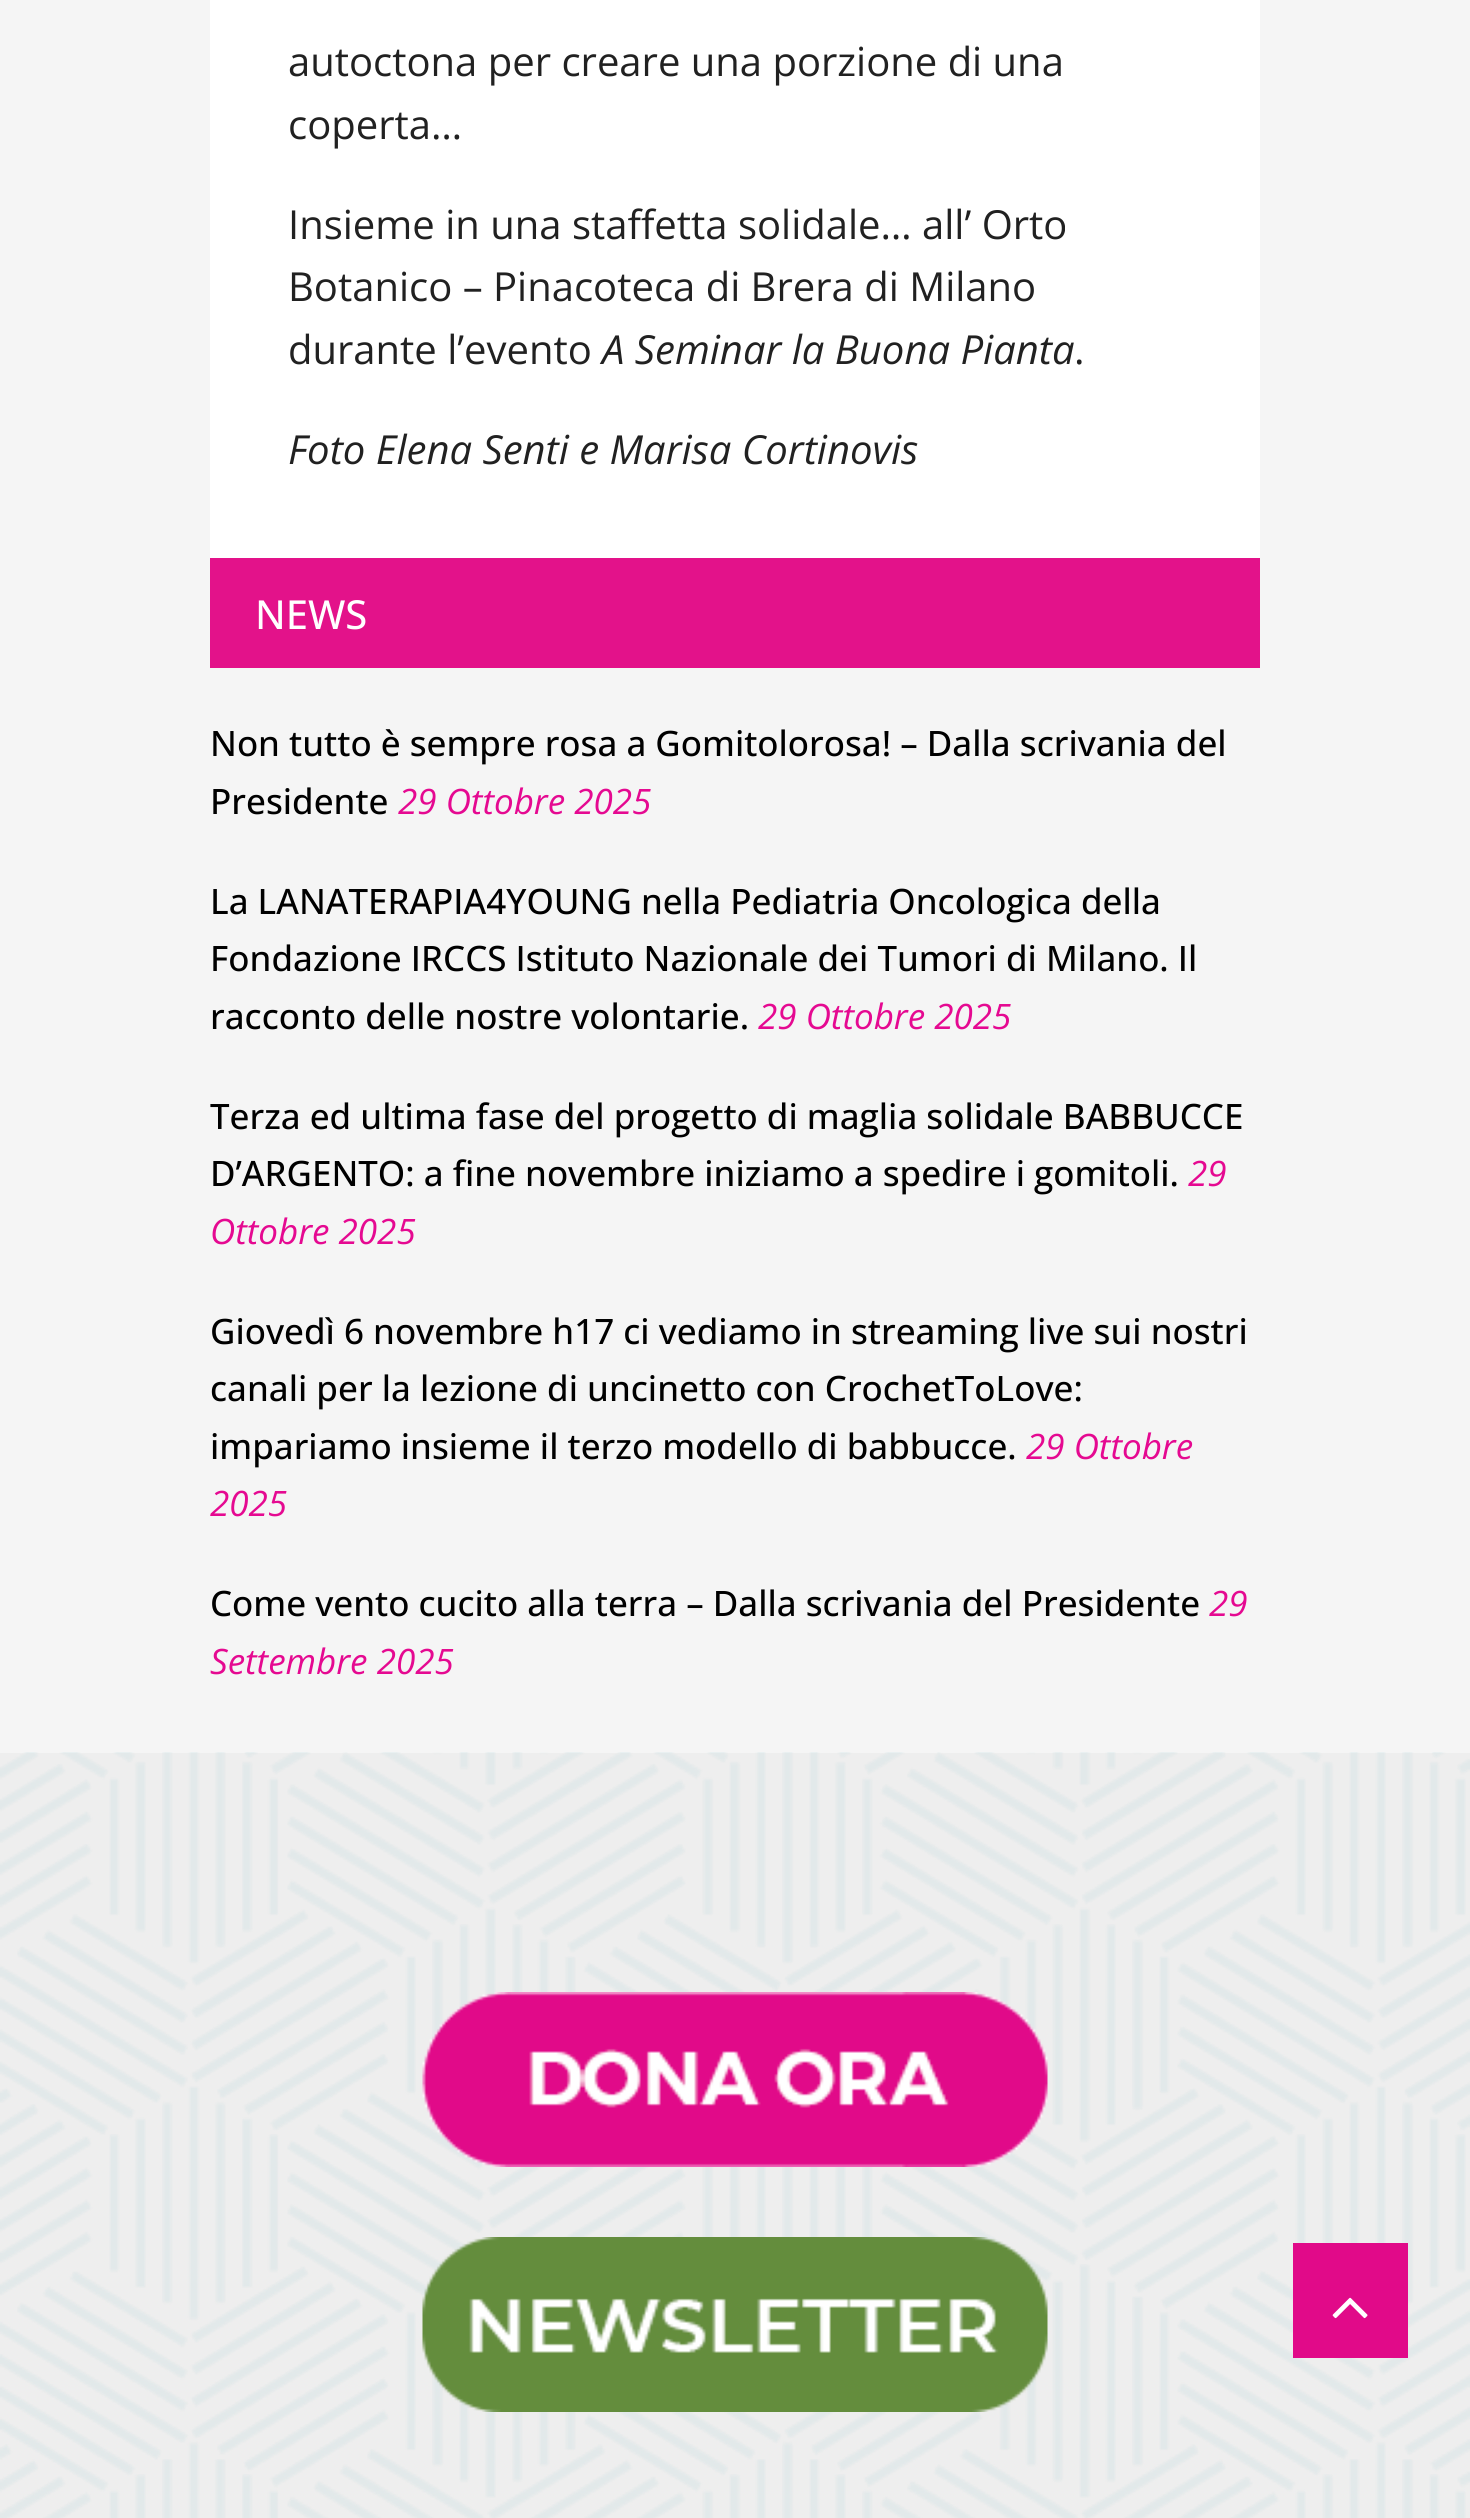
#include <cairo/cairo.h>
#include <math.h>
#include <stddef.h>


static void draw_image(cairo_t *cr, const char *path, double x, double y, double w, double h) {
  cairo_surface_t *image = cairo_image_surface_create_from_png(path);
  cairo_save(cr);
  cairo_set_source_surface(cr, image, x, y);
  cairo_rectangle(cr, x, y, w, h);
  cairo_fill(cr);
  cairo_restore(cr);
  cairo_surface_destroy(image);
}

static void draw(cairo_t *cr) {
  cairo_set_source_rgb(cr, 245 / 255.0, 245 / 255.0, 245 / 255.0);
  cairo_paint(cr);
  cairo_set_source_rgb(cr, 1, 1, 1);
  cairo_rectangle(cr, 210, 0, 1050, 558);
  cairo_fill(cr);
  cairo_set_source_rgb(cr, 227 / 255.0, 18 / 255.0, 138 / 255.0);
  cairo_rectangle(cr, 210, 558, 1050, 110);
  cairo_fill(cr);
  cairo_set_source_rgb(cr, 238 / 255.0, 238 / 255.0, 238 / 255.0);
  cairo_rectangle(cr, 0, 1753, 1470, 765);
  cairo_fill(cr);
  draw_image(cr, "images/1.png", 0, 1752, 1470, 766);
  draw_image(cr, "images/2.png", 422, 1992, 626, 175);
  draw_image(cr, "images/3.png", 422, 2237, 626, 175);
  cairo_set_source_rgb(cr, 225 / 255.0, 10 / 255.0, 137 / 255.0);
  cairo_rectangle(cr, 1293, 2243, 115, 115);
  cairo_fill(cr);
  draw_image(cr, "images/4.png", 1332, 2297, 36, 22);
  cairo_select_font_face(cr, "Open Sans", CAIRO_FONT_SLANT_NORMAL, CAIRO_FONT_WEIGHT_NORMAL);
  cairo_set_font_size(cr, 40);
  cairo_set_source_rgb(cr, 33 / 255.0, 33 / 255.0, 33 / 255.0);
  cairo_move_to(cr, 288, 76);
  cairo_show_text(cr, "autoctona per creare una porzione di una");
  cairo_move_to(cr, 288, 139);
  cairo_show_text(cr, "coperta…");
  cairo_move_to(cr, 288, 239);
  cairo_show_text(cr, "Insieme in una staffetta solidale… all’ Orto");
  cairo_move_to(cr, 288, 301);
  cairo_show_text(cr, "Botanico – Pinacoteca di Brera di Milano");
  cairo_move_to(cr, 288, 364);
  cairo_show_text(cr, "durante l’evento");
  cairo_select_font_face(cr, "Open Sans", CAIRO_FONT_SLANT_ITALIC, CAIRO_FONT_WEIGHT_NORMAL);
  cairo_move_to(cr, 602, 364);
  cairo_show_text(cr, "A Seminar la Buona Pianta");
  cairo_select_font_face(cr, "Open Sans", CAIRO_FONT_SLANT_NORMAL, CAIRO_FONT_WEIGHT_NORMAL);
  cairo_move_to(cr, 1074, 364);
  cairo_show_text(cr, ".");
  cairo_select_font_face(cr, "Open Sans", CAIRO_FONT_SLANT_ITALIC, CAIRO_FONT_WEIGHT_NORMAL);
  cairo_move_to(cr, 288, 464);
  cairo_show_text(cr, "Foto Elena Senti e Marisa Cortinovis");
  cairo_select_font_face(cr, "Open Sans Medium", CAIRO_FONT_SLANT_NORMAL, CAIRO_FONT_WEIGHT_NORMAL);
  cairo_set_source_rgb(cr, 1, 1, 1);
  cairo_move_to(cr, 255, 629);
  cairo_show_text(cr, "NEWS");
  cairo_set_font_size(cr, 35);
  cairo_set_source_rgb(cr, 0, 0, 0);
  cairo_move_to(cr, 210, 756);
  cairo_show_text(cr, "Non tutto è sempre rosa a Gomitolorosa! – Dalla scrivania del");
  cairo_move_to(cr, 210, 814);
  cairo_show_text(cr, "Presidente");
  cairo_select_font_face(cr, "Open Sans", CAIRO_FONT_SLANT_ITALIC, CAIRO_FONT_WEIGHT_NORMAL);
  cairo_set_source_rgb(cr, 229 / 255.0, 9 / 255.0, 145 / 255.0);
  cairo_move_to(cr, 398, 814);
  cairo_show_text(cr, "29 Ottobre 2025");
  cairo_select_font_face(cr, "Open Sans Medium", CAIRO_FONT_SLANT_NORMAL, CAIRO_FONT_WEIGHT_NORMAL);
  cairo_set_source_rgb(cr, 0, 0, 0);
  cairo_move_to(cr, 210, 914);
  cairo_show_text(cr, "La LANATERAPIA4YOUNG nella Pediatria Oncologica della");
  cairo_move_to(cr, 210, 971);
  cairo_show_text(cr, "Fondazione IRCCS Istituto Nazionale dei Tumori di Milano. Il");
  cairo_move_to(cr, 210, 1029);
  cairo_show_text(cr, "racconto delle nostre volontarie.");
  cairo_select_font_face(cr, "Open Sans", CAIRO_FONT_SLANT_ITALIC, CAIRO_FONT_WEIGHT_NORMAL);
  cairo_set_source_rgb(cr, 229 / 255.0, 9 / 255.0, 145 / 255.0);
  cairo_move_to(cr, 758, 1029);
  cairo_show_text(cr, "29 Ottobre 2025");
  cairo_select_font_face(cr, "Open Sans Medium", CAIRO_FONT_SLANT_NORMAL, CAIRO_FONT_WEIGHT_NORMAL);
  cairo_set_source_rgb(cr, 0, 0, 0);
  cairo_move_to(cr, 210, 1129);
  cairo_show_text(cr, "Terza ed ultima fase del progetto di maglia solidale BABBUCCE");
  cairo_move_to(cr, 210, 1186);
  cairo_show_text(cr, "D’ARGENTO: a fine novembre iniziamo a spedire i gomitoli.");
  cairo_select_font_face(cr, "Open Sans", CAIRO_FONT_SLANT_ITALIC, CAIRO_FONT_WEIGHT_NORMAL);
  cairo_set_source_rgb(cr, 229 / 255.0, 9 / 255.0, 145 / 255.0);
  cairo_move_to(cr, 1188, 1186);
  cairo_show_text(cr, "29");
  cairo_move_to(cr, 210, 1244);
  cairo_show_text(cr, "Ottobre 2025");
  cairo_select_font_face(cr, "Open Sans Medium", CAIRO_FONT_SLANT_NORMAL, CAIRO_FONT_WEIGHT_NORMAL);
  cairo_set_source_rgb(cr, 0, 0, 0);
  cairo_move_to(cr, 210, 1344);
  cairo_show_text(cr, "Giovedì 6 novembre h17 ci vediamo in streaming live sui nostri");
  cairo_move_to(cr, 210, 1401);
  cairo_show_text(cr, "canali per la lezione di uncinetto con CrochetToLove:");
  cairo_move_to(cr, 210, 1459);
  cairo_show_text(cr, "impariamo insieme il terzo modello di babbucce.");
  cairo_select_font_face(cr, "Open Sans", CAIRO_FONT_SLANT_ITALIC, CAIRO_FONT_WEIGHT_NORMAL);
  cairo_set_source_rgb(cr, 229 / 255.0, 9 / 255.0, 145 / 255.0);
  cairo_move_to(cr, 1026, 1459);
  cairo_show_text(cr, "29 Ottobre");
  cairo_move_to(cr, 210, 1516);
  cairo_show_text(cr, "2025");
  cairo_select_font_face(cr, "Open Sans Medium", CAIRO_FONT_SLANT_NORMAL, CAIRO_FONT_WEIGHT_NORMAL);
  cairo_set_source_rgb(cr, 0, 0, 0);
  cairo_move_to(cr, 210, 1616);
  cairo_show_text(cr, "Come vento cucito alla terra – Dalla scrivania del Presidente");
  cairo_select_font_face(cr, "Open Sans", CAIRO_FONT_SLANT_ITALIC, CAIRO_FONT_WEIGHT_NORMAL);
  cairo_set_source_rgb(cr, 229 / 255.0, 9 / 255.0, 145 / 255.0);
  cairo_move_to(cr, 1209, 1616);
  cairo_show_text(cr, "29");
  cairo_move_to(cr, 210, 1674);
  cairo_show_text(cr, "Settembre 2025");
}

int main(void) {
  cairo_surface_t *surface = cairo_image_surface_create(CAIRO_FORMAT_RGB24, 1470, 2518);
  cairo_t *cr = cairo_create(surface);
  cairo_font_options_t *options = cairo_font_options_create();
  cairo_font_options_set_hint_metrics(options, CAIRO_HINT_METRICS_OFF);
  cairo_font_options_set_hint_style(options, CAIRO_HINT_STYLE_NONE);
  cairo_set_font_options(cr, options);
  cairo_set_miter_limit(cr, 4);
  draw(cr);
  cairo_surface_write_to_png(surface, "out.png");
  cairo_font_options_destroy(options);
  cairo_destroy(cr);
  cairo_surface_destroy(surface);
  return 0;
}
